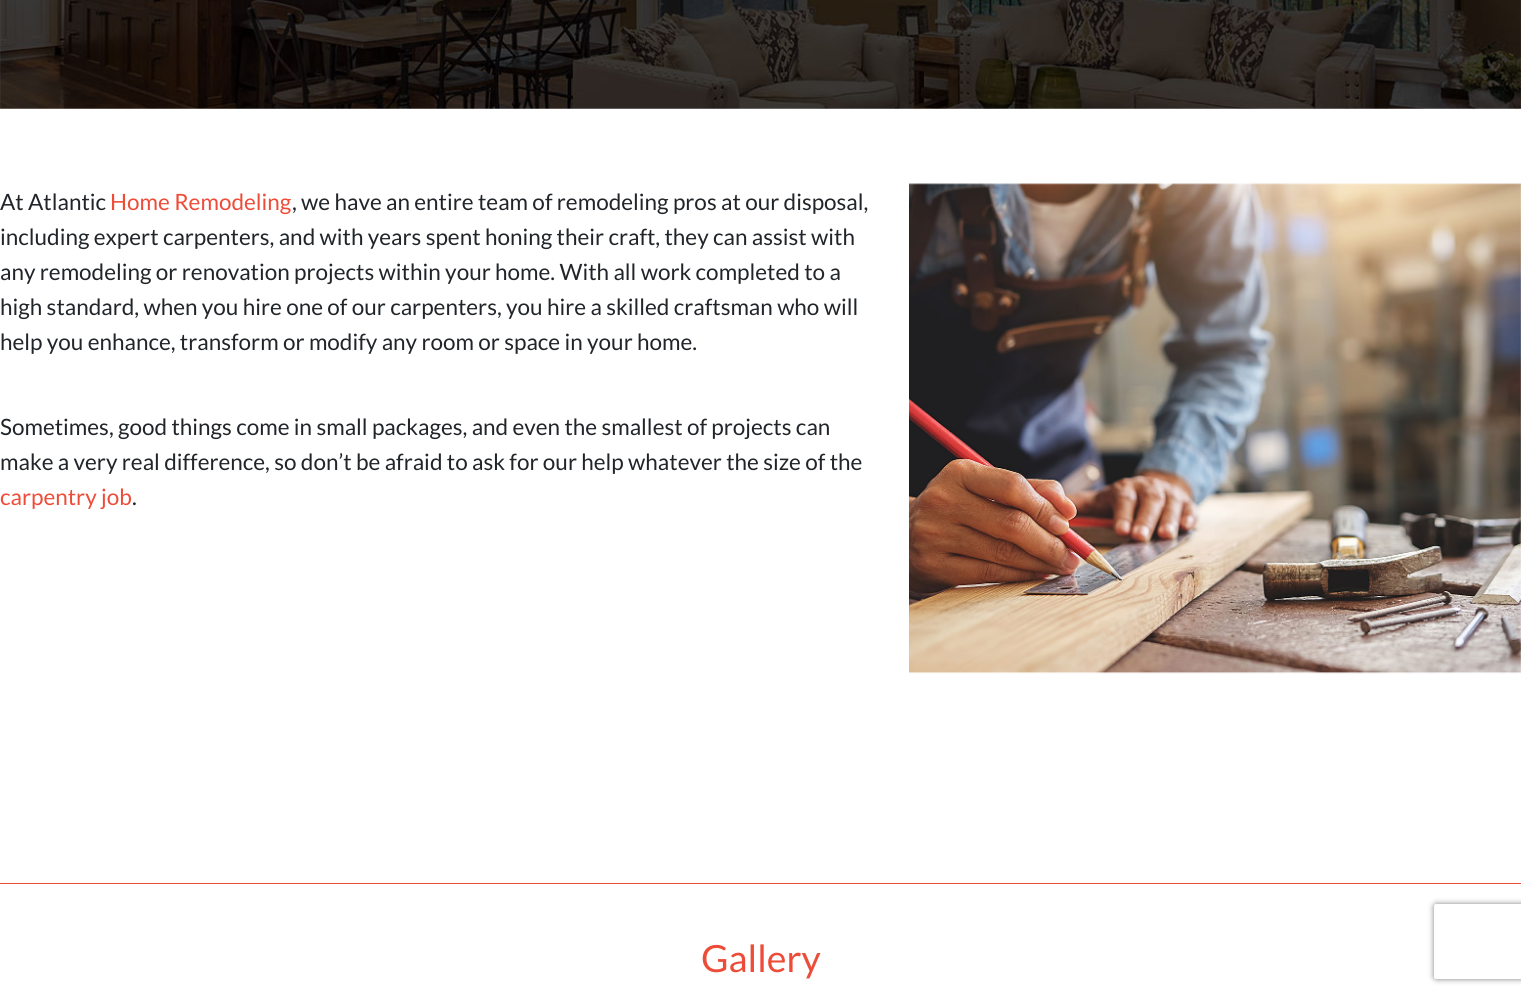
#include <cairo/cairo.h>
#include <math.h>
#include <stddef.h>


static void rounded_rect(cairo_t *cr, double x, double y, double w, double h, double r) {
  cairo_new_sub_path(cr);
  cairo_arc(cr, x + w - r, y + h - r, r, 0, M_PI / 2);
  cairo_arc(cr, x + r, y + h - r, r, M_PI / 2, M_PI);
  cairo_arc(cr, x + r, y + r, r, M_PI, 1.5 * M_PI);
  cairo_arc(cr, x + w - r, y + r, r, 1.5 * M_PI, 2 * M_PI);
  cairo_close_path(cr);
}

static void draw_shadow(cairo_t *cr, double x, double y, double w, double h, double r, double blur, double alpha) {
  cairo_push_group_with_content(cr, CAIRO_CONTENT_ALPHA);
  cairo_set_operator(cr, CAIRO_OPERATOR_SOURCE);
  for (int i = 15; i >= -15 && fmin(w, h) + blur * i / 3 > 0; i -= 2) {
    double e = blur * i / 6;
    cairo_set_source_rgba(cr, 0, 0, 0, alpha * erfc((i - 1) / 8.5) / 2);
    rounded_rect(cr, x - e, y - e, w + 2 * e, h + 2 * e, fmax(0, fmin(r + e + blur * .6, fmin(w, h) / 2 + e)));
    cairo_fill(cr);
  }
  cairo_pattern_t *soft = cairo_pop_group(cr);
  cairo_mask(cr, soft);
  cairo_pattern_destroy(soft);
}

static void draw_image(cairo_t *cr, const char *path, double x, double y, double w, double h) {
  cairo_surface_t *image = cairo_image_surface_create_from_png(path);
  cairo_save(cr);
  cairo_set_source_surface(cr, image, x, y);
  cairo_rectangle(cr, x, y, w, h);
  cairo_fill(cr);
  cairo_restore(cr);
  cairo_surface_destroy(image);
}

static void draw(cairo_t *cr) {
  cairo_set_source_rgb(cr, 1, 1, 1);
  cairo_paint(cr);
  draw_image(cr, "images/1.png", 0, 0, 1521, 109);
  draw_image(cr, "images/2.png", 909, 183, 612, 491);
  cairo_set_source_rgb(cr, 237 / 255.0, 77 / 255.0, 56 / 255.0);
  cairo_rectangle(cr, 0, 883, 1521, 1);
  cairo_fill(cr);
  cairo_save(cr);
  cairo_set_fill_rule(cr, CAIRO_FILL_RULE_EVEN_ODD);
  cairo_new_path(cr);
  cairo_move_to(cr, 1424, 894);
  cairo_line_to(cr, 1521, 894);
  cairo_line_to(cr, 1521, 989);
  cairo_line_to(cr, 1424, 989);
  cairo_close_path(cr);
  cairo_move_to(cr, 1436.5, 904);
  cairo_line_to(cr, 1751.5, 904);
  cairo_curve_to(cr, 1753, 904, 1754, 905, 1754, 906.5);
  cairo_line_to(cr, 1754, 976.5);
  cairo_curve_to(cr, 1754, 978, 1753, 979, 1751.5, 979);
  cairo_line_to(cr, 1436.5, 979);
  cairo_curve_to(cr, 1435, 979, 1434, 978, 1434, 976.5);
  cairo_line_to(cr, 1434, 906.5);
  cairo_curve_to(cr, 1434, 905, 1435, 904, 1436.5, 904);
  cairo_close_path(cr);
  cairo_clip(cr);
  cairo_set_source_rgb(cr, 128 / 255.0, 128 / 255.0, 128 / 255.0);
  draw_shadow(cr, 1434, 904, 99, 75, 2.5, 3, 1);
  cairo_restore(cr);
  cairo_select_font_face(cr, "Lato", CAIRO_FONT_SLANT_NORMAL, CAIRO_FONT_WEIGHT_NORMAL);
  cairo_set_font_size(cr, 22.5);
  cairo_set_source_rgb(cr, 33 / 255.0, 37 / 255.0, 41 / 255.0);
  cairo_move_to(cr, 0, 210);
  cairo_show_text(cr, "At Atlantic");
  cairo_set_source_rgb(cr, 237 / 255.0, 77 / 255.0, 56 / 255.0);
  cairo_move_to(cr, 110, 210);
  cairo_show_text(cr, "Home Remodeling");
  cairo_set_source_rgb(cr, 33 / 255.0, 37 / 255.0, 41 / 255.0);
  cairo_move_to(cr, 292, 210);
  cairo_show_text(cr, ", we have an entire team of remodeling pros at our disposal,");
  cairo_move_to(cr, 0, 245);
  cairo_show_text(cr, "including expert carpenters, and with years spent honing their craft, they can assist with");
  cairo_move_to(cr, 0, 280);
  cairo_show_text(cr, "any remodeling or renovation projects within your home. With all work completed to a");
  cairo_move_to(cr, 0, 315);
  cairo_show_text(cr, "high standard, when you hire one of our carpenters, you hire a skilled craftsman who will");
  cairo_move_to(cr, 0, 350);
  cairo_show_text(cr, "help you enhance, transform or modify any room or space in your home.");
  cairo_move_to(cr, 0, 435);
  cairo_show_text(cr, "Sometimes, good things come in small packages, and even the smallest of projects can");
  cairo_move_to(cr, 0, 470);
  cairo_show_text(cr, "make a very real difference, so don’t be afraid to ask for our help whatever the size of the");
  cairo_set_source_rgb(cr, 237 / 255.0, 77 / 255.0, 56 / 255.0);
  cairo_move_to(cr, 0, 505);
  cairo_show_text(cr, "carpentry job");
  cairo_set_source_rgb(cr, 33 / 255.0, 37 / 255.0, 41 / 255.0);
  cairo_move_to(cr, 132, 505);
  cairo_show_text(cr, ".");
  cairo_set_font_size(cr, 37.5);
  cairo_set_source_rgb(cr, 237 / 255.0, 77 / 255.0, 56 / 255.0);
  cairo_move_to(cr, 701, 972);
  cairo_show_text(cr, "Gallery");
}

int main(void) {
  cairo_surface_t *surface = cairo_image_surface_create(CAIRO_FORMAT_RGB24, 1521, 996);
  cairo_t *cr = cairo_create(surface);
  cairo_font_options_t *options = cairo_font_options_create();
  cairo_font_options_set_hint_metrics(options, CAIRO_HINT_METRICS_OFF);
  cairo_font_options_set_hint_style(options, CAIRO_HINT_STYLE_NONE);
  cairo_set_font_options(cr, options);
  cairo_set_miter_limit(cr, 4);
  draw(cr);
  cairo_surface_write_to_png(surface, "out.png");
  cairo_font_options_destroy(options);
  cairo_destroy(cr);
  cairo_surface_destroy(surface);
  return 0;
}
